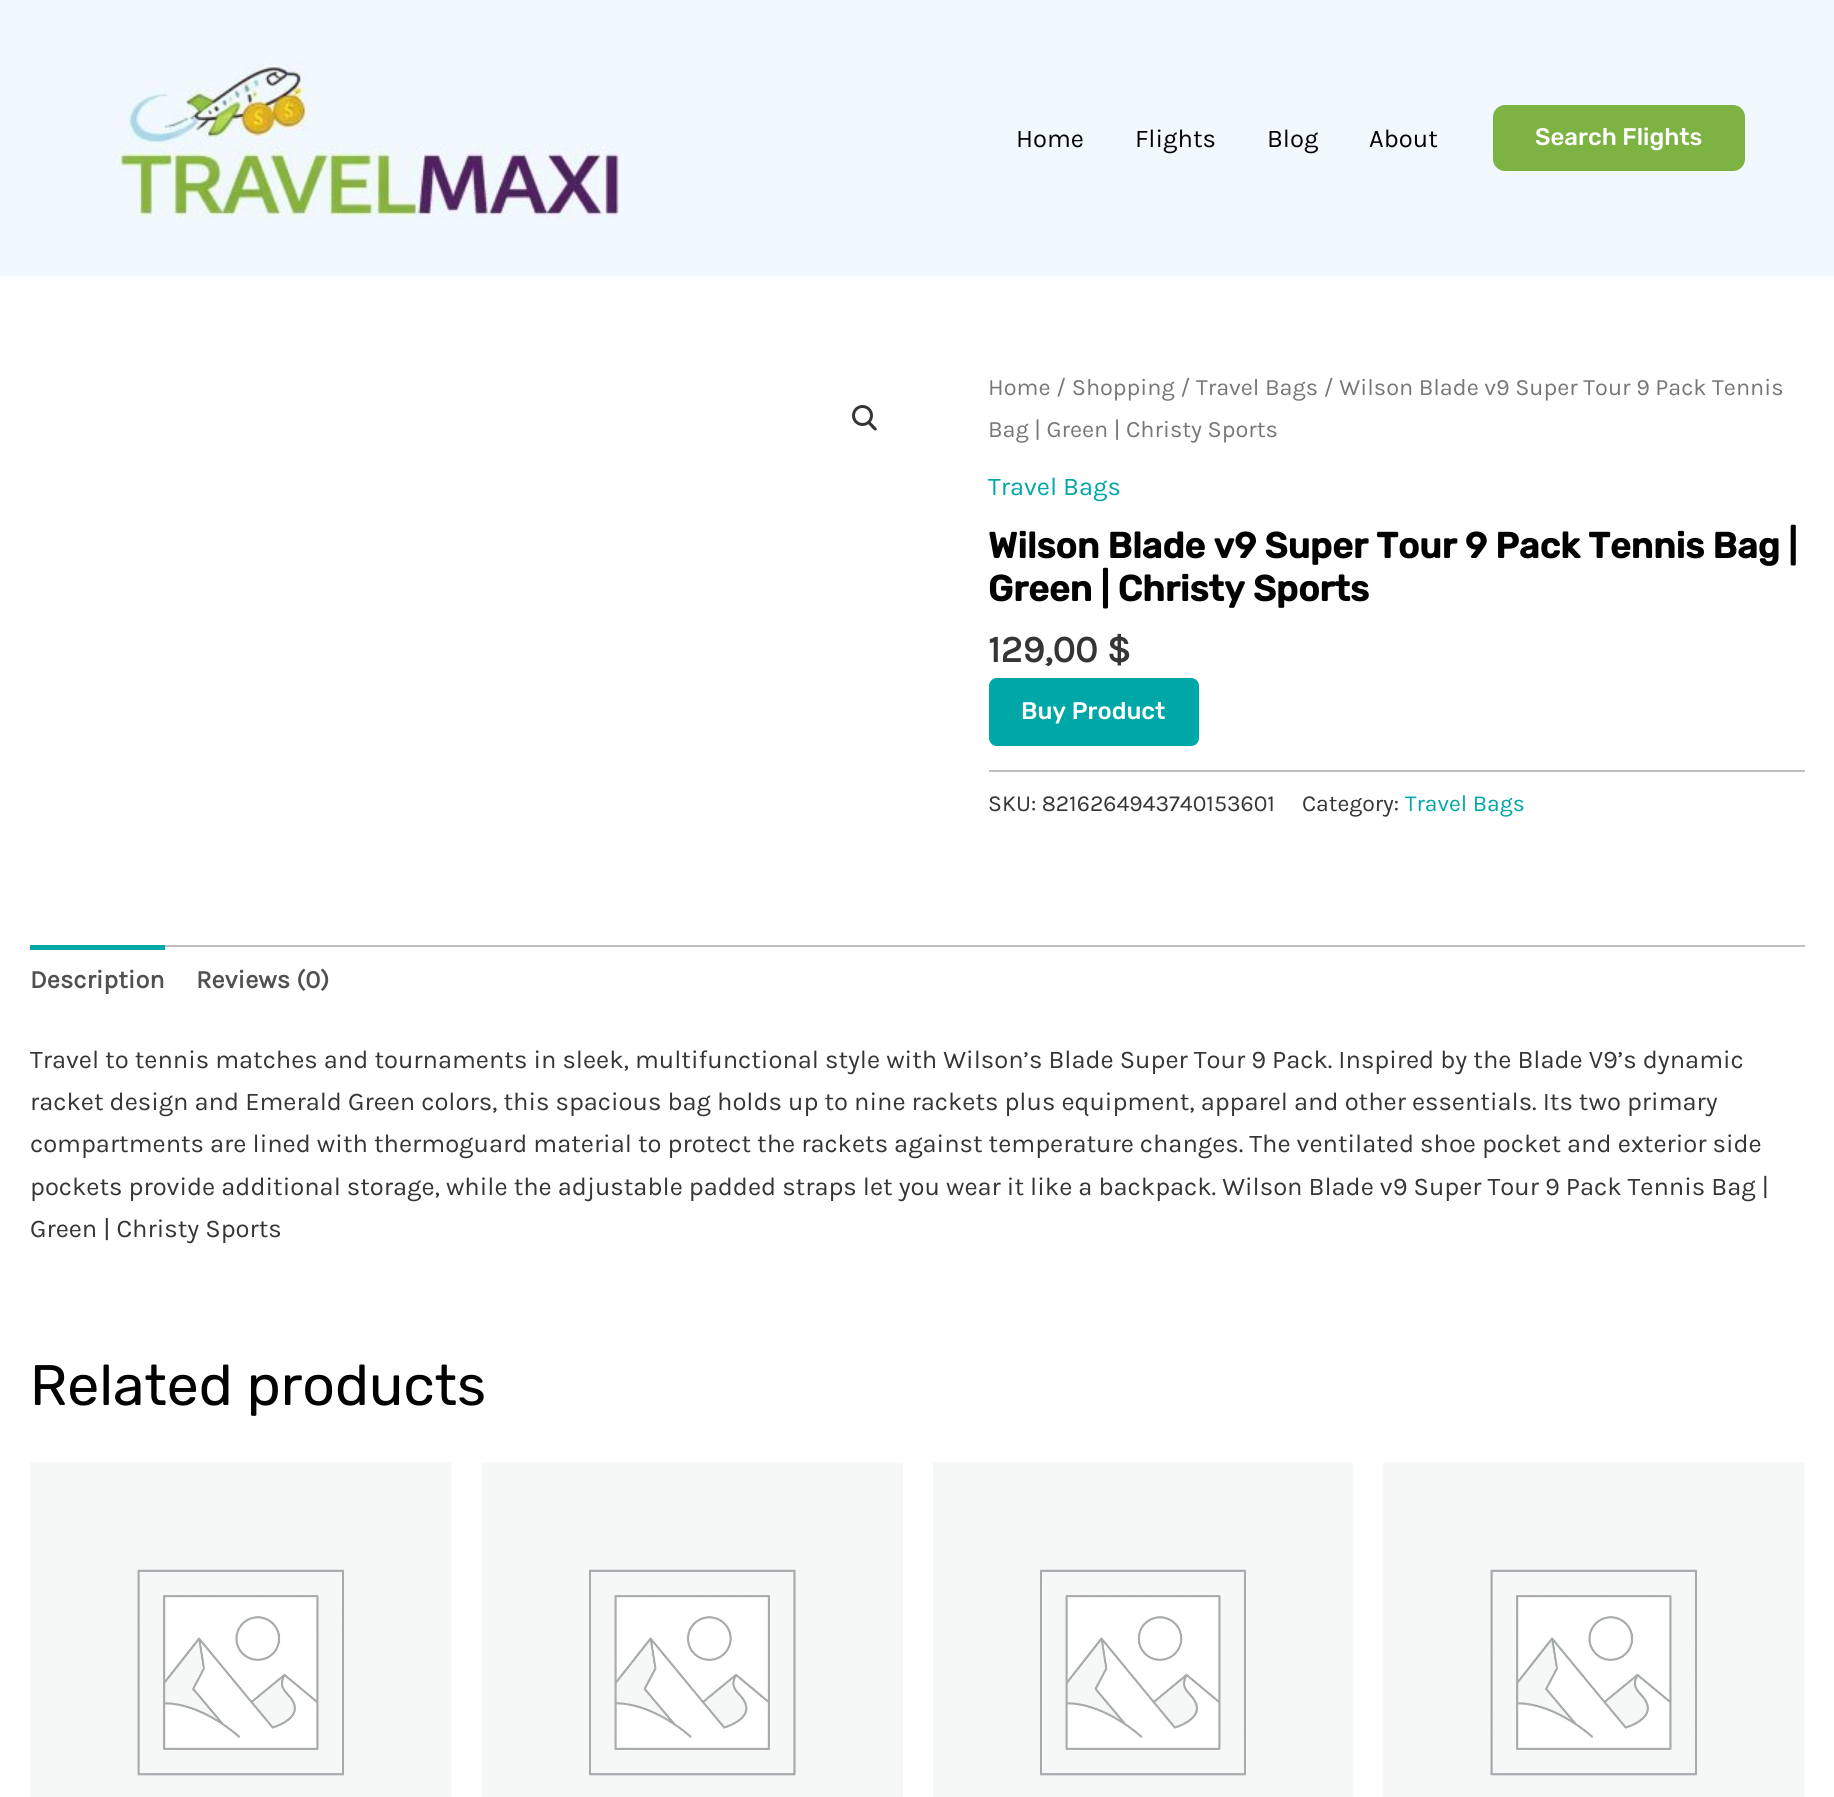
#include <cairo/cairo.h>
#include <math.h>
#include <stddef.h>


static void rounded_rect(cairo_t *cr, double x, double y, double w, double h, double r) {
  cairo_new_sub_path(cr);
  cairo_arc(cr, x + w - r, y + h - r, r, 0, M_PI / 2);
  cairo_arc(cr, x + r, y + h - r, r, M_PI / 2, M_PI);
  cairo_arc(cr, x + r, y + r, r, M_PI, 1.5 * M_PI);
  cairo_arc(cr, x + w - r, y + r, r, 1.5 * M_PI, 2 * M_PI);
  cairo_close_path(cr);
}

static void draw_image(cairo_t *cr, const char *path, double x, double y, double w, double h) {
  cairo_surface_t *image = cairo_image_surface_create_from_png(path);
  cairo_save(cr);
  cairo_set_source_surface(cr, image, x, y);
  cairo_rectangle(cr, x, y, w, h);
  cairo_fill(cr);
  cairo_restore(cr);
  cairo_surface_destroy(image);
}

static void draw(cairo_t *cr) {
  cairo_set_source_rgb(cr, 1, 1, 1);
  cairo_paint(cr);
  cairo_set_source_rgb(cr, 241 / 255.0, 248 / 255.0, 254 / 255.0);
  cairo_rectangle(cr, 0, 0, 1834, 276);
  cairo_fill(cr);
  draw_image(cr, "images/1.png", 114, 62, 505, 157);
  cairo_set_source_rgb(cr, 124 / 255.0, 179 / 255.0, 66 / 255.0);
  rounded_rect(cr, 1493, 105, 252, 66, 12);
  cairo_fill(cr);
  cairo_arc(cr, 862.5, 415.5, 9, 0, 2 * M_PI);
  cairo_set_source_rgb(cr, 53 / 255.0, 53 / 255.0, 53 / 255.0);
  cairo_set_line_width(cr, 3);
  cairo_stroke(cr);
  cairo_new_path(cr);
  cairo_move_to(cr, 868, 422);
  cairo_curve_to(cr, 869.5, 420, 872.5, 424, 873.5, 425);
  cairo_curve_to(cr, 874, 426, 878, 428.5, 876.5, 430);
  cairo_curve_to(cr, 875, 432, 872, 428, 871, 427);
  cairo_curve_to(cr, 870.5, 426, 866.5, 423.5, 868, 422);
  cairo_close_path(cr);
  cairo_fill(cr);
  cairo_set_source_rgb(cr, 0, 167 / 255.0, 167 / 255.0);
  rounded_rect(cr, 990.5, 679.5, 207, 65, 6.5);
  cairo_fill_preserve(cr);
  cairo_stroke(cr);
  cairo_set_source_rgb(cr, 192 / 255.0, 192 / 255.0, 192 / 255.0);
  cairo_rectangle(cr, 989, 770, 816, 2);
  cairo_fill(cr);
  cairo_rectangle(cr, 165, 945, 1640, 2);
  cairo_fill(cr);
  cairo_set_source_rgb(cr, 0, 167 / 255.0, 167 / 255.0);
  cairo_rectangle(cr, 30, 945, 135, 5);
  cairo_fill(cr);
  draw_image(cr, "images/2.png", 30, 1462, 422, 335);
  draw_image(cr, "images/3.png", 481, 1462, 422, 335);
  draw_image(cr, "images/4.png", 933, 1462, 420, 335);
  draw_image(cr, "images/2.png", 1383, 1462, 422, 335);
  cairo_select_font_face(cr, "Karla", CAIRO_FONT_SLANT_NORMAL, CAIRO_FONT_WEIGHT_NORMAL);
  cairo_set_font_size(cr, 25.5);
  cairo_set_source_rgb(cr, 2 / 255.0, 2 / 255.0, 2 / 255.0);
  cairo_move_to(cr, 1016, 147);
  cairo_show_text(cr, "Home");
  cairo_move_to(cr, 1135, 147);
  cairo_show_text(cr, "Flights");
  cairo_move_to(cr, 1267, 147);
  cairo_show_text(cr, "Blog");
  cairo_move_to(cr, 1369, 147);
  cairo_show_text(cr, "About");
  cairo_select_font_face(cr, "Rubik Medium", CAIRO_FONT_SLANT_NORMAL, CAIRO_FONT_WEIGHT_NORMAL);
  cairo_set_font_size(cr, 24);
  cairo_set_source_rgb(cr, 1, 1, 1);
  cairo_move_to(cr, 1535, 145);
  cairo_show_text(cr, "Search Flights");
  cairo_select_font_face(cr, "Karla", CAIRO_FONT_SLANT_NORMAL, CAIRO_FONT_WEIGHT_NORMAL);
  cairo_set_font_size(cr, 23.45);
  cairo_set_source_rgb(cr, 119 / 255.0, 119 / 255.0, 119 / 255.0);
  cairo_move_to(cr, 988, 395);
  cairo_show_text(cr, "Home / Shopping / Travel Bags / Wilson Blade v9 Super Tour 9 Pack Tennis");
  cairo_move_to(cr, 988, 437);
  cairo_show_text(cr, "Bag | Green | Christy Sports");
  cairo_set_font_size(cr, 25.5);
  cairo_set_source_rgb(cr, 0, 167 / 255.0, 167 / 255.0);
  cairo_move_to(cr, 988, 495);
  cairo_show_text(cr, "Travel Bags");
  cairo_select_font_face(cr, "Rubik", CAIRO_FONT_SLANT_NORMAL, CAIRO_FONT_WEIGHT_BOLD);
  cairo_set_font_size(cr, 36);
  cairo_set_source_rgb(cr, 2 / 255.0, 2 / 255.0, 2 / 255.0);
  cairo_move_to(cr, 988, 558);
  cairo_show_text(cr, "Wilson Blade v9 Super Tour 9 Pack Tennis Bag |");
  cairo_move_to(cr, 988, 601);
  cairo_show_text(cr, "Green | Christy Sports");
  cairo_select_font_face(cr, "Karla", CAIRO_FONT_SLANT_NORMAL, CAIRO_FONT_WEIGHT_BOLD);
  cairo_set_font_size(cr, 38);
  cairo_set_source_rgb(cr, 53 / 255.0, 53 / 255.0, 53 / 255.0);
  cairo_move_to(cr, 988, 662);
  cairo_show_text(cr, "129,00 $");
  cairo_select_font_face(cr, "Rubik Medium", CAIRO_FONT_SLANT_NORMAL, CAIRO_FONT_WEIGHT_NORMAL);
  cairo_set_font_size(cr, 24);
  cairo_set_source_rgb(cr, 1, 1, 1);
  cairo_move_to(cr, 1021, 719);
  cairo_show_text(cr, "Buy Product");
  cairo_select_font_face(cr, "Karla", CAIRO_FONT_SLANT_NORMAL, CAIRO_FONT_WEIGHT_NORMAL);
  cairo_set_font_size(cr, 23);
  cairo_set_source_rgb(cr, 53 / 255.0, 53 / 255.0, 53 / 255.0);
  cairo_move_to(cr, 988, 811);
  cairo_show_text(cr, "SKU: 8216264943740153601");
  cairo_move_to(cr, 1302, 811);
  cairo_show_text(cr, "Category:");
  cairo_set_source_rgb(cr, 0, 167 / 255.0, 167 / 255.0);
  cairo_move_to(cr, 1405, 811);
  cairo_show_text(cr, "Travel Bags");
  cairo_select_font_face(cr, "Karla", CAIRO_FONT_SLANT_NORMAL, CAIRO_FONT_WEIGHT_BOLD);
  cairo_set_font_size(cr, 25.5);
  cairo_set_source_rgb(cr, 81 / 255.0, 81 / 255.0, 81 / 255.0);
  cairo_move_to(cr, 30, 988);
  cairo_show_text(cr, "Description");
  cairo_move_to(cr, 196, 988);
  cairo_show_text(cr, "Reviews (0)");
  cairo_select_font_face(cr, "Karla", CAIRO_FONT_SLANT_NORMAL, CAIRO_FONT_WEIGHT_NORMAL);
  cairo_set_source_rgb(cr, 53 / 255.0, 53 / 255.0, 53 / 255.0);
  cairo_move_to(cr, 30, 1068);
  cairo_show_text(cr, "Travel to tennis matches and tournaments in sleek, multifunctional style with Wilson’s Blade Super Tour 9 Pack. Inspired by the Blade V9’s dynamic");
  cairo_move_to(cr, 30, 1110);
  cairo_show_text(cr, "racket design and Emerald Green colors, this spacious bag holds up to nine rackets plus equipment, apparel and other essentials. Its two primary");
  cairo_move_to(cr, 30, 1152);
  cairo_show_text(cr, "compartments are lined with thermoguard material to protect the rackets against temperature changes. The ventilated shoe pocket and exterior side");
  cairo_move_to(cr, 30, 1195);
  cairo_show_text(cr, "pockets provide additional storage, while the adjustable padded straps let you wear it like a backpack. Wilson Blade v9 Super Tour 9 Pack Tennis Bag |");
  cairo_move_to(cr, 30, 1237);
  cairo_show_text(cr, "Green | Christy Sports");
  cairo_select_font_face(cr, "Rubik", CAIRO_FONT_SLANT_NORMAL, CAIRO_FONT_WEIGHT_NORMAL);
  cairo_set_font_size(cr, 57);
  cairo_set_source_rgb(cr, 2 / 255.0, 2 / 255.0, 2 / 255.0);
  cairo_move_to(cr, 30, 1405);
  cairo_show_text(cr, "Related products");
}

int main(void) {
  cairo_surface_t *surface = cairo_image_surface_create(CAIRO_FORMAT_RGB24, 1834, 1797);
  cairo_t *cr = cairo_create(surface);
  cairo_font_options_t *options = cairo_font_options_create();
  cairo_font_options_set_hint_metrics(options, CAIRO_HINT_METRICS_OFF);
  cairo_font_options_set_hint_style(options, CAIRO_HINT_STYLE_NONE);
  cairo_set_font_options(cr, options);
  cairo_set_miter_limit(cr, 4);
  draw(cr);
  cairo_surface_write_to_png(surface, "out.png");
  cairo_font_options_destroy(options);
  cairo_destroy(cr);
  cairo_surface_destroy(surface);
  return 0;
}
